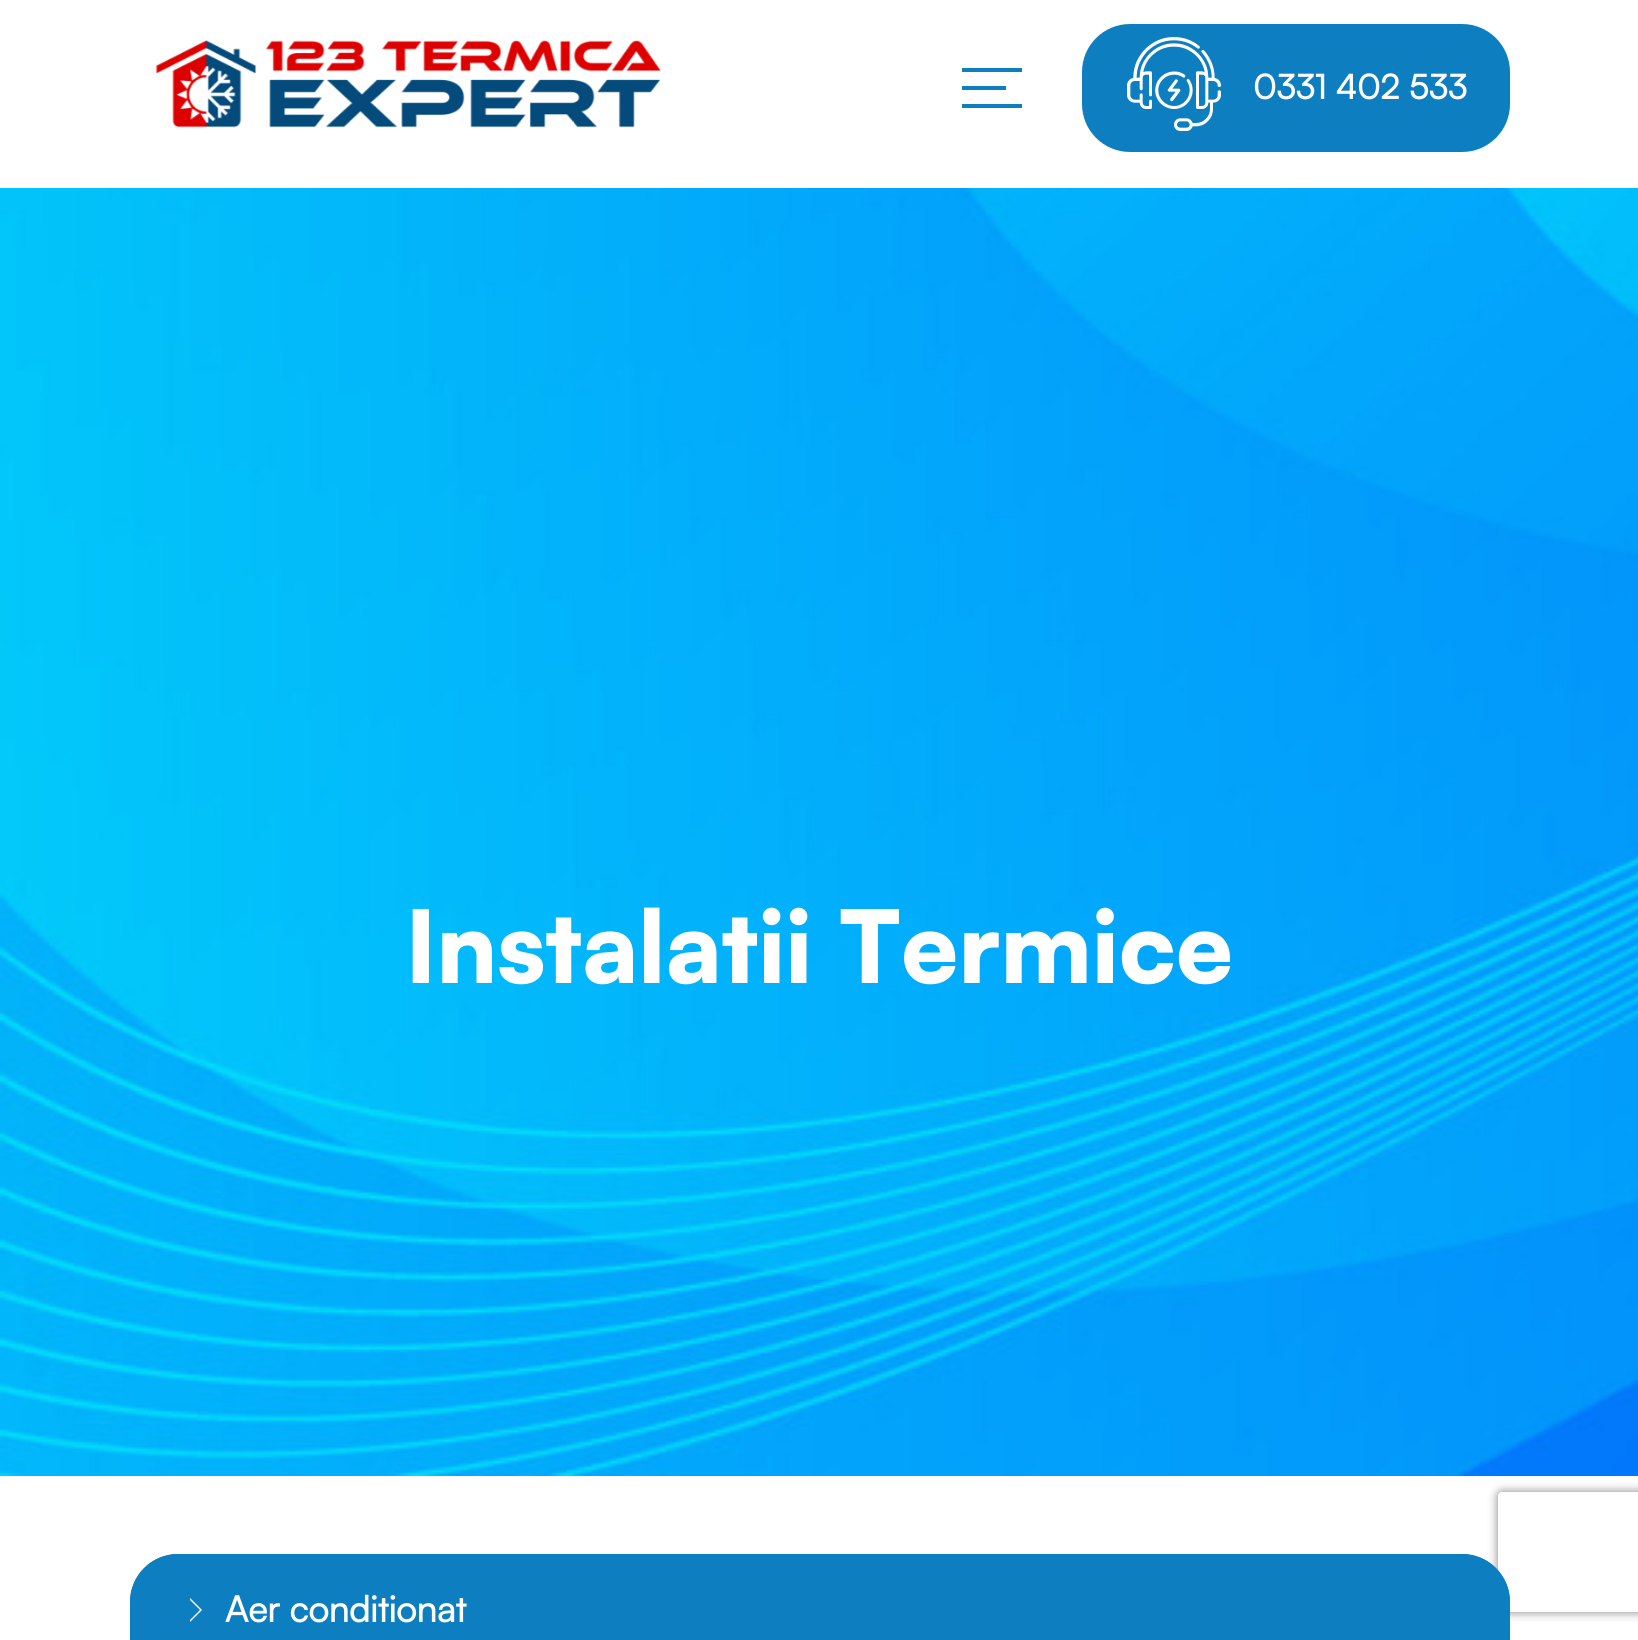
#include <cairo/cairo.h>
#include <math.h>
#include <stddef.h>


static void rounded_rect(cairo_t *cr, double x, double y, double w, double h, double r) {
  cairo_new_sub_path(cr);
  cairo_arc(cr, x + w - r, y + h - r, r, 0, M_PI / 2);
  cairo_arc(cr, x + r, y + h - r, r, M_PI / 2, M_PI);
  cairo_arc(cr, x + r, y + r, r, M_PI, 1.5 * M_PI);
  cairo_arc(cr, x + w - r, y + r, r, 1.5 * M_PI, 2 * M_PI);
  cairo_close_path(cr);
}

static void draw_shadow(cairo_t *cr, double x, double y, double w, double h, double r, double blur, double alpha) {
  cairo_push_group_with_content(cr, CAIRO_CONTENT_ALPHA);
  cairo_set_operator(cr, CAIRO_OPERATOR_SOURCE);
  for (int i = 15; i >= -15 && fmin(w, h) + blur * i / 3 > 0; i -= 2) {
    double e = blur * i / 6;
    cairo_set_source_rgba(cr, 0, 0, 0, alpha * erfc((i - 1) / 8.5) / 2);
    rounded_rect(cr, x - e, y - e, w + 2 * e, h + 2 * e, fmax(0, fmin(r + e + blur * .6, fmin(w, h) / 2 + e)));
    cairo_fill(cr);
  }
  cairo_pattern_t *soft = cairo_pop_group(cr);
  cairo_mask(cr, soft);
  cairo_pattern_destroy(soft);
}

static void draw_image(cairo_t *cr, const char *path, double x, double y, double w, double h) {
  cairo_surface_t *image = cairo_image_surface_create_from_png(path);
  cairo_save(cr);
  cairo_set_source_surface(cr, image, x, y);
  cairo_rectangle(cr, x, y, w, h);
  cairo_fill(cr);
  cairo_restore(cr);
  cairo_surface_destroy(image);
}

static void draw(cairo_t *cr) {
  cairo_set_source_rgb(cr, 1, 1, 1);
  cairo_paint(cr);
  draw_image(cr, "images/1.png", 156, 40, 505, 88);
  cairo_set_source_rgb(cr, 13 / 255.0, 126 / 255.0, 191 / 255.0);
  cairo_rectangle(cr, 962, 68, 60, 4);
  cairo_fill(cr);
  cairo_rectangle(cr, 962, 86, 44, 4);
  cairo_fill(cr);
  cairo_rectangle(cr, 962, 104, 60, 4);
  cairo_fill(cr);
  rounded_rect(cr, 1082, 24, 428, 128, 48);
  cairo_fill(cr);
  draw_image(cr, "images/2.png", 1127, 37, 94, 94);
  draw_image(cr, "images/3.png", 0, 188, 1638, 1288);
  cairo_save(cr);
  cairo_set_fill_rule(cr, CAIRO_FILL_RULE_EVEN_ODD);
  cairo_new_path(cr);
  cairo_move_to(cr, 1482, 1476);
  cairo_line_to(cr, 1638, 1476);
  cairo_line_to(cr, 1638, 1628);
  cairo_line_to(cr, 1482, 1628);
  cairo_close_path(cr);
  cairo_move_to(cr, 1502, 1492);
  cairo_line_to(cr, 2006, 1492);
  cairo_curve_to(cr, 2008, 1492, 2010, 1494, 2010, 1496);
  cairo_line_to(cr, 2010, 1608);
  cairo_curve_to(cr, 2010, 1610, 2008, 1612, 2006, 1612);
  cairo_line_to(cr, 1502, 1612);
  cairo_curve_to(cr, 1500, 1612, 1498, 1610, 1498, 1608);
  cairo_line_to(cr, 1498, 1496);
  cairo_curve_to(cr, 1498, 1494, 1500, 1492, 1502, 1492);
  cairo_close_path(cr);
  cairo_clip(cr);
  cairo_set_source_rgb(cr, 128 / 255.0, 128 / 255.0, 128 / 255.0);
  draw_shadow(cr, 1498, 1492, 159, 120, 4, 5, 1);
  cairo_restore(cr);
  rounded_rect(cr, 130, 1554, 1380, 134, 48);
  cairo_fill(cr);
  rounded_rect(cr, 130, 1554, 1380, 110, 48);
  cairo_fill(cr);
  cairo_set_source_rgb(cr, 1, 1, 1);
  cairo_new_path(cr);
  cairo_move_to(cr, 200, 1610);
  cairo_line_to(cr, 190, 1620);
  cairo_line_to(cr, 190, 1622);
  cairo_line_to(cr, 202, 1610);
  cairo_line_to(cr, 190, 1598);
  cairo_line_to(cr, 190, 1600);
  cairo_close_path(cr);
  cairo_fill(cr);
  cairo_select_font_face(cr, "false", CAIRO_FONT_SLANT_NORMAL, CAIRO_FONT_WEIGHT_BOLD);
  cairo_set_font_size(cr, 34);
  cairo_move_to(cr, 1253, 99);
  cairo_show_text(cr, "0331 402 533");
  cairo_select_font_face(cr, "Satoshi Black", CAIRO_FONT_SLANT_NORMAL, CAIRO_FONT_WEIGHT_NORMAL);
  cairo_set_font_size(cr, 100);
  cairo_move_to(cr, 405, 983);
  cairo_show_text(cr, "Instalatii Termice");
  cairo_select_font_face(cr, "false", CAIRO_FONT_SLANT_NORMAL, CAIRO_FONT_WEIGHT_BOLD);
  cairo_set_font_size(cr, 36);
  cairo_move_to(cr, 225, 1622);
  cairo_show_text(cr, "Aer conditionat");
}

int main(void) {
  cairo_surface_t *surface = cairo_image_surface_create(CAIRO_FORMAT_RGB24, 1638, 1640);
  cairo_t *cr = cairo_create(surface);
  cairo_font_options_t *options = cairo_font_options_create();
  cairo_font_options_set_hint_metrics(options, CAIRO_HINT_METRICS_OFF);
  cairo_font_options_set_hint_style(options, CAIRO_HINT_STYLE_NONE);
  cairo_set_font_options(cr, options);
  cairo_set_miter_limit(cr, 4);
  draw(cr);
  cairo_surface_write_to_png(surface, "out.png");
  cairo_font_options_destroy(options);
  cairo_destroy(cr);
  cairo_surface_destroy(surface);
  return 0;
}
